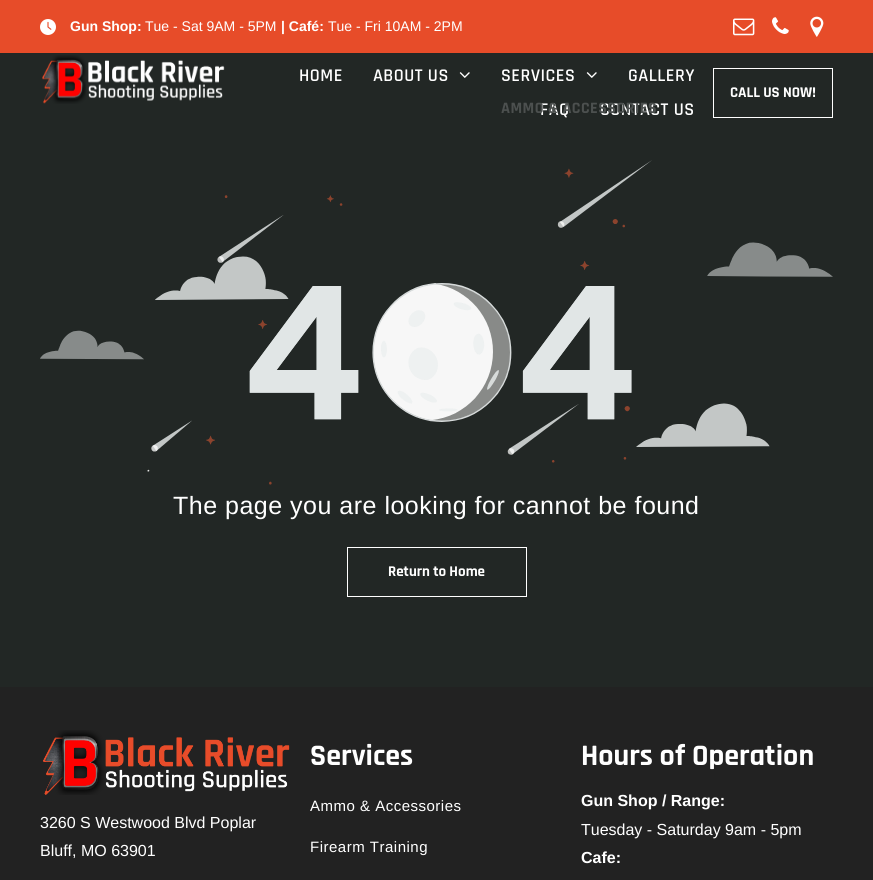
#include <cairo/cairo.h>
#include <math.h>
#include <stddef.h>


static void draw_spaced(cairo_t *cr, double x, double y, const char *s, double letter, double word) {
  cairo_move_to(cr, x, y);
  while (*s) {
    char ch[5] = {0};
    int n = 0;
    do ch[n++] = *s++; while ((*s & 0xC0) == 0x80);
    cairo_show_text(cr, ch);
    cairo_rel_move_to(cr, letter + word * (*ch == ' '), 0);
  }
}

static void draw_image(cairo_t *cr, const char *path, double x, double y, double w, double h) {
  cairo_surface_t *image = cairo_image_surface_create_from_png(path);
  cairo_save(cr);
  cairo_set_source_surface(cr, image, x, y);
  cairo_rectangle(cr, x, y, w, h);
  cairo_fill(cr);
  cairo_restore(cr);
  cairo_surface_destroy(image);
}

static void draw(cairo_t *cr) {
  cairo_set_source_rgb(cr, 34 / 255.0, 39 / 255.0, 37 / 255.0);
  cairo_paint(cr);
  cairo_set_source_rgb(cr, 231 / 255.0, 76 / 255.0, 41 / 255.0);
  cairo_rectangle(cr, 0, 0, 873, 53);
  cairo_fill(cr);
  draw_image(cr, "images/1.png", 40, 19, 16, 16);
  draw_image(cr, "images/2.png", 733, 18, 22, 18);
  draw_image(cr, "images/3.png", 772, 17, 17, 17);
  draw_image(cr, "images/4.png", 810, 16, 14, 21);
  draw_image(cr, "images/5.png", 42, 55, 183, 49);
  draw_image(cr, "images/6.png", 459, 72, 11, 6);
  draw_image(cr, "images/6.png", 586, 72, 11, 6);
  cairo_rectangle(cr, 713.5, 68.5, 119, 49);
  cairo_set_source_rgb(cr, 1, 1, 1);
  cairo_set_line_width(cr, 1);
  cairo_stroke(cr);
  draw_image(cr, "images/7.png", 40, 160, 793, 325);
  cairo_rectangle(cr, 347.5, 547.5, 179, 49);
  cairo_stroke(cr);
  cairo_set_source_rgb(cr, 34 / 255.0, 34 / 255.0, 34 / 255.0);
  cairo_rectangle(cr, 0, 687, 873, 193);
  cairo_fill(cr);
  draw_image(cr, "images/8.png", 43, 730, 247, 65);
  cairo_select_font_face(cr, "Arimo", CAIRO_FONT_SLANT_NORMAL, CAIRO_FONT_WEIGHT_BOLD);
  cairo_set_font_size(cr, 14);
  cairo_set_source_rgb(cr, 1, 1, 1);
  cairo_move_to(cr, 70, 31);
  cairo_show_text(cr, "Gun Shop:");
  cairo_select_font_face(cr, "Arimo", CAIRO_FONT_SLANT_NORMAL, CAIRO_FONT_WEIGHT_NORMAL);
  cairo_move_to(cr, 145, 31);
  cairo_show_text(cr, "Tue - Sat 9AM - 5PM");
  cairo_select_font_face(cr, "Arimo", CAIRO_FONT_SLANT_NORMAL, CAIRO_FONT_WEIGHT_BOLD);
  cairo_move_to(cr, 281, 31);
  cairo_show_text(cr, "| Café:");
  cairo_select_font_face(cr, "Arimo", CAIRO_FONT_SLANT_NORMAL, CAIRO_FONT_WEIGHT_NORMAL);
  cairo_move_to(cr, 328, 31);
  cairo_show_text(cr, "Tue - Fri 10AM - 2PM");
  cairo_select_font_face(cr, "Rajdhani SemiBold", CAIRO_FONT_SLANT_NORMAL, CAIRO_FONT_WEIGHT_NORMAL);
  cairo_set_font_size(cr, 18);
  draw_spaced(cr, 299, 81, "HOME", 0.5, 0);
  draw_spaced(cr, 373, 81, "ABOUT US", 0.5, 0);
  draw_spaced(cr, 501, 81, "SERVICES", 0.5, 0);
  draw_spaced(cr, 628, 81, "GALLERY", 0.5, 0);
  draw_spaced(cr, 540, 115, "FAQ", 0.5, 0);
  draw_spaced(cr, 600, 115, "CONTACT US", 0.5, 0);
  cairo_select_font_face(cr, "Rajdhani", CAIRO_FONT_SLANT_NORMAL, CAIRO_FONT_WEIGHT_BOLD);
  cairo_set_font_size(cr, 16);
  cairo_set_source_rgb(cr, 76 / 255.0, 80 / 255.0, 79 / 255.0);
  draw_spaced(cr, 501, 113, "AMMO & ACCESSORIES", 0.5, 0);
  cairo_set_font_size(cr, 15);
  cairo_set_source_rgb(cr, 1, 1, 1);
  cairo_move_to(cr, 730, 97);
  cairo_show_text(cr, "CALL US NOW!");
  cairo_select_font_face(cr, "Arimo", CAIRO_FONT_SLANT_NORMAL, CAIRO_FONT_WEIGHT_NORMAL);
  cairo_set_font_size(cr, 25);
  draw_spaced(cr, 173, 514, "The page you are looking for cannot be found", 0.5, 0);
  cairo_select_font_face(cr, "Rajdhani", CAIRO_FONT_SLANT_NORMAL, CAIRO_FONT_WEIGHT_BOLD);
  cairo_set_font_size(cr, 15);
  cairo_move_to(cr, 388, 576);
  cairo_show_text(cr, "Return to Home");
  cairo_select_font_face(cr, "Arimo", CAIRO_FONT_SLANT_NORMAL, CAIRO_FONT_WEIGHT_NORMAL);
  cairo_set_font_size(cr, 16);
  cairo_move_to(cr, 40, 828);
  cairo_show_text(cr, "3260 S Westwood Blvd Poplar");
  cairo_move_to(cr, 40, 856);
  cairo_show_text(cr, "Bluff, MO 63901");
  cairo_select_font_face(cr, "Rajdhani", CAIRO_FONT_SLANT_NORMAL, CAIRO_FONT_WEIGHT_BOLD);
  cairo_set_font_size(cr, 30);
  cairo_move_to(cr, 310, 765);
  cairo_show_text(cr, "Services");
  cairo_select_font_face(cr, "Arimo", CAIRO_FONT_SLANT_NORMAL, CAIRO_FONT_WEIGHT_NORMAL);
  cairo_set_font_size(cr, 15);
  draw_spaced(cr, 310, 811, "Ammo & Accessories", 0.5, 0);
  draw_spaced(cr, 310, 852, "Firearm Training", 0.5, 0);
  cairo_select_font_face(cr, "Rajdhani", CAIRO_FONT_SLANT_NORMAL, CAIRO_FONT_WEIGHT_BOLD);
  cairo_set_font_size(cr, 30);
  cairo_move_to(cr, 581, 765);
  cairo_show_text(cr, "Hours of Operation");
  cairo_select_font_face(cr, "Arimo", CAIRO_FONT_SLANT_NORMAL, CAIRO_FONT_WEIGHT_BOLD);
  cairo_set_font_size(cr, 16);
  cairo_move_to(cr, 581, 806);
  cairo_show_text(cr, "Gun Shop / Range:");
  cairo_select_font_face(cr, "Arimo", CAIRO_FONT_SLANT_NORMAL, CAIRO_FONT_WEIGHT_NORMAL);
  cairo_move_to(cr, 581, 835);
  cairo_show_text(cr, "Tuesday - Saturday 9am - 5pm");
  cairo_select_font_face(cr, "Arimo", CAIRO_FONT_SLANT_NORMAL, CAIRO_FONT_WEIGHT_BOLD);
  cairo_move_to(cr, 581, 863);
  cairo_show_text(cr, "Cafe:");
}

int main(void) {
  cairo_surface_t *surface = cairo_image_surface_create(CAIRO_FORMAT_RGB24, 873, 880);
  cairo_t *cr = cairo_create(surface);
  cairo_font_options_t *options = cairo_font_options_create();
  cairo_font_options_set_hint_metrics(options, CAIRO_HINT_METRICS_OFF);
  cairo_font_options_set_hint_style(options, CAIRO_HINT_STYLE_NONE);
  cairo_set_font_options(cr, options);
  cairo_set_miter_limit(cr, 4);
  draw(cr);
  cairo_surface_write_to_png(surface, "out.png");
  cairo_font_options_destroy(options);
  cairo_destroy(cr);
  cairo_surface_destroy(surface);
  return 0;
}
